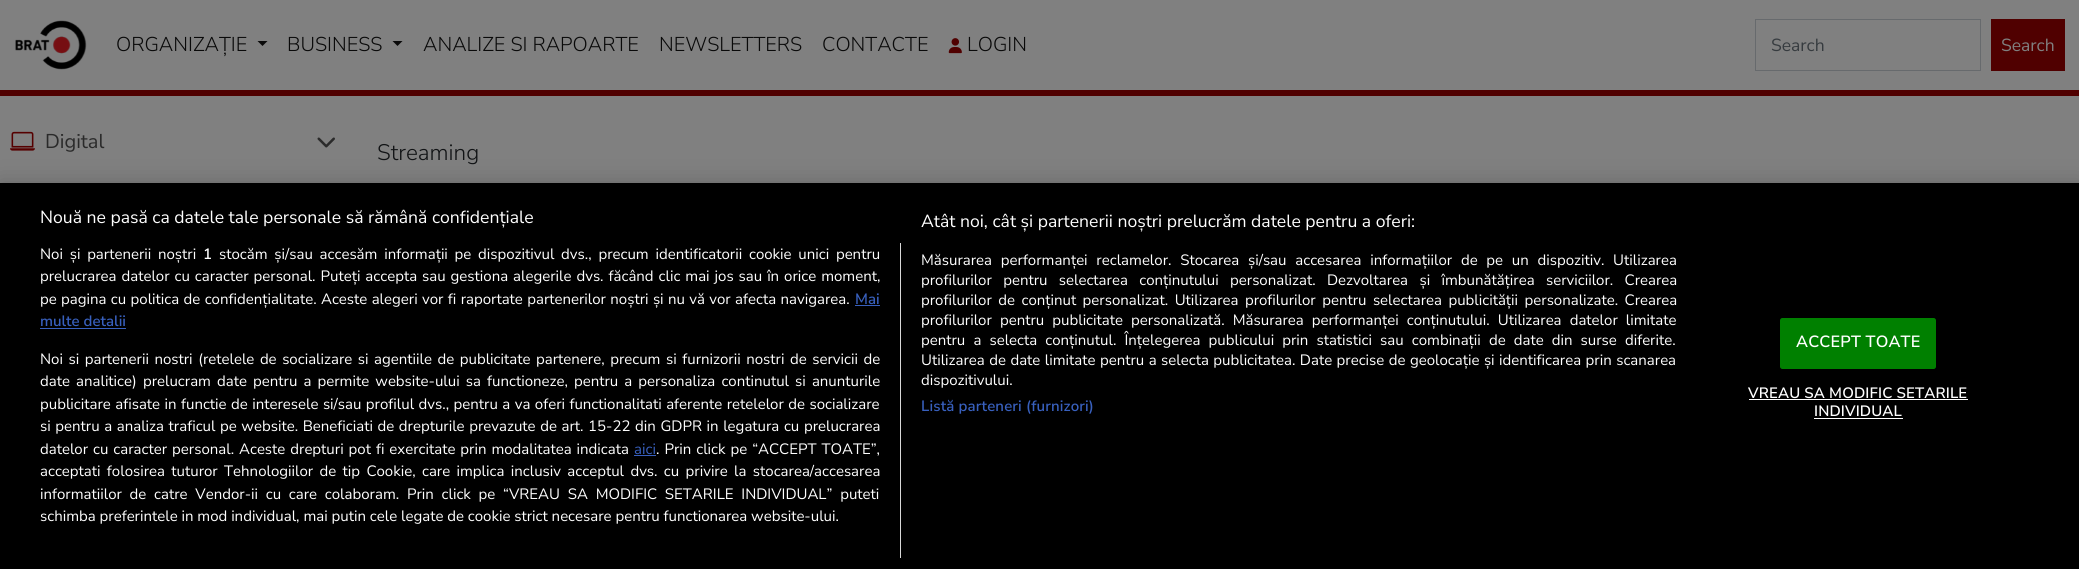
#include <cairo/cairo.h>
#include <math.h>
#include <stddef.h>


static void draw_spaced(cairo_t *cr, double x, double y, const char *s, double letter, double word) {
  cairo_move_to(cr, x, y);
  while (*s) {
    char ch[5] = {0};
    int n = 0;
    do ch[n++] = *s++; while ((*s & 0xC0) == 0x80);
    cairo_show_text(cr, ch);
    cairo_rel_move_to(cr, letter + word * (*ch == ' '), 0);
  }
}

static void rounded_rect(cairo_t *cr, double x, double y, double w, double h, double r) {
  cairo_new_sub_path(cr);
  cairo_arc(cr, x + w - r, y + h - r, r, 0, M_PI / 2);
  cairo_arc(cr, x + r, y + h - r, r, M_PI / 2, M_PI);
  cairo_arc(cr, x + r, y + r, r, M_PI, 1.5 * M_PI);
  cairo_arc(cr, x + w - r, y + r, r, 1.5 * M_PI, 2 * M_PI);
  cairo_close_path(cr);
}

static void draw_shadow(cairo_t *cr, double x, double y, double w, double h, double r, double blur, double alpha) {
  cairo_push_group_with_content(cr, CAIRO_CONTENT_ALPHA);
  cairo_set_operator(cr, CAIRO_OPERATOR_SOURCE);
  for (int i = 15; i >= -15 && fmin(w, h) + blur * i / 3 > 0; i -= 2) {
    double e = blur * i / 6;
    cairo_set_source_rgba(cr, 0, 0, 0, alpha * erfc((i - 1) / 8.5) / 2);
    rounded_rect(cr, x - e, y - e, w + 2 * e, h + 2 * e, fmax(0, fmin(r + e + blur * .6, fmin(w, h) / 2 + e)));
    cairo_fill(cr);
  }
  cairo_pattern_t *soft = cairo_pop_group(cr);
  cairo_mask(cr, soft);
  cairo_pattern_destroy(soft);
}

static void draw_image(cairo_t *cr, const char *path, double x, double y, double w, double h) {
  cairo_surface_t *image = cairo_image_surface_create_from_png(path);
  cairo_save(cr);
  cairo_set_source_surface(cr, image, x, y);
  cairo_rectangle(cr, x, y, w, h);
  cairo_fill(cr);
  cairo_restore(cr);
  cairo_surface_destroy(image);
}

static void draw(cairo_t *cr) {
  cairo_set_source_rgb(cr, 128 / 255.0, 128 / 255.0, 128 / 255.0);
  cairo_paint(cr);
  cairo_set_source_rgb(cr, 80 / 255.0, 0, 0);
  cairo_rectangle(cr, 0, 90, 2079, 6);
  cairo_fill(cr);
  draw_image(cr, "images/1.png", 15, 20, 72, 50);
  cairo_set_source_rgb(cr, 9 / 255.0, 9 / 255.0, 9 / 255.0);
  cairo_new_path(cr);
  cairo_move_to(cr, 257.5, 41);
  cairo_line_to(cr, 267.5, 41);
  cairo_line_to(cr, 262.5, 46);
  cairo_close_path(cr);
  cairo_fill(cr);
  cairo_new_path(cr);
  cairo_move_to(cr, 392.5, 41);
  cairo_line_to(cr, 402.5, 41);
  cairo_line_to(cr, 397.5, 46);
  cairo_close_path(cr);
  cairo_fill(cr);
  draw_image(cr, "images/2.png", 948, 38, 14, 16);
  cairo_rectangle(cr, 1755.5, 19.5, 225, 51);
  cairo_set_source_rgb(cr, 103 / 255.0, 106 / 255.0, 109 / 255.0);
  cairo_set_line_width(cr, 1);
  cairo_stroke(cr);
  cairo_set_source_rgb(cr, 80 / 255.0, 0, 0);
  cairo_rectangle(cr, 1991, 19, 74, 52);
  cairo_fill(cr);
  draw_image(cr, "images/3.png", 10, 131, 25, 20);
  draw_image(cr, "images/4.png", 317, 137, 18, 11);
  cairo_set_source_rgb(cr, 0, 0, 0);
  draw_shadow(cr, 0, 183, 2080, 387, 0, 11, 0.2);
  cairo_set_source_rgb(cr, 0, 0, 0);
  cairo_rectangle(cr, 0, 183, 2079, 386);
  cairo_fill(cr);
  cairo_set_source_rgb(cr, 216 / 255.0, 216 / 255.0, 216 / 255.0);
  cairo_rectangle(cr, 900, 243, 1, 315);
  cairo_fill(cr);
  cairo_set_source_rgb(cr, 56 / 255.0, 96 / 255.0, 190 / 255.0);
  cairo_rectangle(cr, 855, 305, 25, 1);
  cairo_fill(cr);
  cairo_rectangle(cr, 40, 328, 86, 1);
  cairo_fill(cr);
  cairo_rectangle(cr, 634, 455, 22, 1);
  cairo_fill(cr);
  cairo_set_source_rgb(cr, 0, 128 / 255.0, 0);
  rounded_rect(cr, 1780.5, 318.5, 155, 50, 2);
  cairo_fill_preserve(cr);
  cairo_stroke(cr);
  cairo_set_source_rgb(cr, 1, 1, 1);
  cairo_rectangle(cr, 1749, 399, 219, 1);
  cairo_fill(cr);
  cairo_rectangle(cr, 1814, 418, 89, 1);
  cairo_fill(cr);
  cairo_select_font_face(cr, "Nunito Sans Light", CAIRO_FONT_SLANT_NORMAL, CAIRO_FONT_WEIGHT_NORMAL);
  cairo_set_font_size(cr, 20);
  cairo_set_source_rgb(cr, 9 / 255.0, 9 / 255.0, 9 / 255.0);
  cairo_move_to(cr, 116, 51);
  cairo_show_text(cr, "ORGANIZAȚIE");
  cairo_move_to(cr, 287, 51);
  cairo_show_text(cr, "BUSINESS");
  cairo_move_to(cr, 423, 51);
  cairo_show_text(cr, "ANALIZE SI RAPOARTE");
  cairo_move_to(cr, 659, 51);
  cairo_show_text(cr, "NEWSLETTERS");
  cairo_move_to(cr, 822, 51);
  cairo_show_text(cr, "CONTACTE");
  cairo_move_to(cr, 967, 51);
  cairo_show_text(cr, "LOGIN");
  cairo_select_font_face(cr, "Nunito Sans", CAIRO_FONT_SLANT_NORMAL, CAIRO_FONT_WEIGHT_NORMAL);
  cairo_set_font_size(cr, 17.5);
  cairo_set_source_rgb(cr, 54 / 255.0, 59 / 255.0, 63 / 255.0);
  cairo_move_to(cr, 1771, 51);
  cairo_show_text(cr, "Search");
  cairo_set_source_rgb(cr, 128 / 255.0, 128 / 255.0, 128 / 255.0);
  cairo_move_to(cr, 2001, 51);
  cairo_show_text(cr, "Search");
  cairo_set_font_size(cr, 20);
  cairo_set_source_rgb(cr, 42 / 255.0, 42 / 255.0, 42 / 255.0);
  cairo_move_to(cr, 45, 148);
  cairo_show_text(cr, "Digital");
  cairo_select_font_face(cr, "Nunito Sans Light", CAIRO_FONT_SLANT_NORMAL, CAIRO_FONT_WEIGHT_NORMAL);
  cairo_set_font_size(cr, 22.5);
  cairo_set_source_rgb(cr, 17 / 255.0, 19 / 255.0, 21 / 255.0);
  cairo_move_to(cr, 377, 160);
  cairo_show_text(cr, "Streaming");
  cairo_select_font_face(cr, "Nunito Sans", CAIRO_FONT_SLANT_NORMAL, CAIRO_FONT_WEIGHT_NORMAL);
  cairo_set_font_size(cr, 17.6);
  cairo_set_source_rgb(cr, 1, 1, 1);
  cairo_move_to(cr, 40, 223);
  cairo_show_text(cr, "Nouă ne pasă ca datele tale personale să rămână confidențiale");
  cairo_move_to(cr, 921, 227);
  cairo_show_text(cr, "Atât noi, cât și partenerii noștri prelucrăm datele pentru a oferi:");
  cairo_set_font_size(cr, 15);
  draw_spaced(cr, 921, 265, "Măsurarea performanței reclamelor. Stocarea și/sau accesarea informațiilor de pe un dispozitiv. Utilizarea", 0, 4.9);
  draw_spaced(cr, 921, 285, "profilurilor pentru selectarea conținutului personalizat. Dezvoltarea și îmbunătățirea serviciilor. Crearea", 0, 7.5);
  draw_spaced(cr, 921, 305, "profilurilor de conținut personalizat. Utilizarea profilurilor pentru selectarea publicității personalizate. Crearea", 0, 2.6);
  draw_spaced(cr, 921, 325, "profilurilor pentru publicitate personalizată. Măsurarea performanței conținutului. Utilizarea datelor limitate", 0, 4.25);
  draw_spaced(cr, 921, 345, "pentru a selecta conținutul. Înțelegerea publicului prin statistici sau combinații de date din surse diferite.", 0, 4.25);
  draw_spaced(cr, 921, 365, "Utilizarea de date limitate pentru a selecta publicitatea. Date precise de geolocație și identificarea prin scanarea", 0, 0.6);
  cairo_move_to(cr, 921, 385);
  cairo_show_text(cr, "dispozitivului.");
  cairo_select_font_face(cr, "Nunito Sans SemiBold", CAIRO_FONT_SLANT_NORMAL, CAIRO_FONT_WEIGHT_NORMAL);
  cairo_set_source_rgb(cr, 56 / 255.0, 96 / 255.0, 190 / 255.0);
  draw_spaced(cr, 921, 411, "Listă parteneri (furnizori)", 0.15, 0);
  cairo_select_font_face(cr, "Nunito Sans", CAIRO_FONT_SLANT_NORMAL, CAIRO_FONT_WEIGHT_NORMAL);
  cairo_set_source_rgb(cr, 1, 1, 1);
  draw_spaced(cr, 40, 259, "Noi și partenerii noștri", 0, 2.9);
  cairo_select_font_face(cr, "Nunito Sans SemiBold", CAIRO_FONT_SLANT_NORMAL, CAIRO_FONT_WEIGHT_NORMAL);
  cairo_move_to(cr, 203, 259);
  cairo_show_text(cr, "1");
  cairo_select_font_face(cr, "Nunito Sans", CAIRO_FONT_SLANT_NORMAL, CAIRO_FONT_WEIGHT_NORMAL);
  draw_spaced(cr, 219, 259, "stocăm și/sau accesăm informații pe dispozitivul dvs., precum identificatorii cookie unici pentru", 0, 2.9);
  draw_spaced(cr, 40, 281, "prelucrarea datelor cu caracter personal. Puteți accepta sau gestiona alegerile dvs. făcând clic mai jos sau în orice moment,", 0, 1.1);
  draw_spaced(cr, 40, 304, "pe pagina cu politica de confidențialitate. Aceste alegeri vor fi raportate partenerilor noștri și nu vă vor afecta navigarea.", 0, 0.5);
  cairo_select_font_face(cr, "Nunito Sans SemiBold", CAIRO_FONT_SLANT_NORMAL, CAIRO_FONT_WEIGHT_NORMAL);
  cairo_set_source_rgb(cr, 56 / 255.0, 96 / 255.0, 190 / 255.0);
  cairo_move_to(cr, 855, 304);
  cairo_show_text(cr, "Mai");
  cairo_move_to(cr, 40, 326);
  cairo_show_text(cr, "multe detalii");
  cairo_select_font_face(cr, "Nunito Sans", CAIRO_FONT_SLANT_NORMAL, CAIRO_FONT_WEIGHT_NORMAL);
  cairo_set_source_rgb(cr, 1, 1, 1);
  draw_spaced(cr, 40, 364, "Noi si partenerii nostri (retelele de socializare si agentiile de publicitate partenere, precum si furnizorii nostri de servicii de", 0, 1.7);
  draw_spaced(cr, 40, 386, "date analitice) prelucram date pentru a permite website-ului sa functioneze, pentru a personaliza continutul si anunturile", 0, 2.25);
  draw_spaced(cr, 40, 409, "publicitare afisate in functie de interesele si/sau profilul dvs., pentru a va oferi functionalitati aferente retelelor de socializare", 0, 0.6);
  draw_spaced(cr, 40, 431, "si pentru a analiza traficul pe website. Beneficiati de drepturile prevazute de art. 15-22 din GDPR in legatura cu prelucrarea", 0, 0.75);
  draw_spaced(cr, 40, 454, "datelor cu caracter personal. Aceste drepturi pot fi exercitate prin modalitatea indicata", 0, 1.1);
  cairo_set_source_rgb(cr, 56 / 255.0, 96 / 255.0, 190 / 255.0);
  cairo_move_to(cr, 634, 454);
  cairo_show_text(cr, "aici");
  cairo_set_source_rgb(cr, 1, 1, 1);
  draw_spaced(cr, 656, 454, ". Prin click pe “ACCEPT TOATE”,", 0, 1.1);
  draw_spaced(cr, 40, 476, "acceptati folosirea tuturor Tehnologiilor de tip Cookie, care implica inclusiv acceptul dvs. cu privire la stocarea/accesarea", 0, 2.5);
  draw_spaced(cr, 40, 499, "informatiilor de catre Vendor-ii cu care colaboram. Prin click pe “VREAU SA MODIFIC SETARILE INDIVIDUAL” puteti", 0, 3.9);
  cairo_move_to(cr, 40, 521);
  cairo_show_text(cr, "schimba preferintele in mod individual, mai putin cele legate de cookie strict necesare pentru functionarea website-ului.");
  cairo_select_font_face(cr, "Nunito Sans SemiBold", CAIRO_FONT_SLANT_NORMAL, CAIRO_FONT_WEIGHT_NORMAL);
  cairo_set_font_size(cr, 16.25);
  draw_spaced(cr, 1796, 347, "ACCEPT TOATE", 0.2, 0);
  cairo_set_font_size(cr, 15);
  draw_spaced(cr, 1748, 398, "VREAU SA MODIFIC SETARILE", 0.15, 0);
  draw_spaced(cr, 1814, 416, "INDIVIDUAL", 0.15, 0);
}

int main(void) {
  cairo_surface_t *surface = cairo_image_surface_create(CAIRO_FORMAT_RGB24, 2079, 569);
  cairo_t *cr = cairo_create(surface);
  cairo_font_options_t *options = cairo_font_options_create();
  cairo_font_options_set_hint_metrics(options, CAIRO_HINT_METRICS_OFF);
  cairo_font_options_set_hint_style(options, CAIRO_HINT_STYLE_NONE);
  cairo_set_font_options(cr, options);
  cairo_set_miter_limit(cr, 4);
  draw(cr);
  cairo_surface_write_to_png(surface, "out.png");
  cairo_font_options_destroy(options);
  cairo_destroy(cr);
  cairo_surface_destroy(surface);
  return 0;
}
